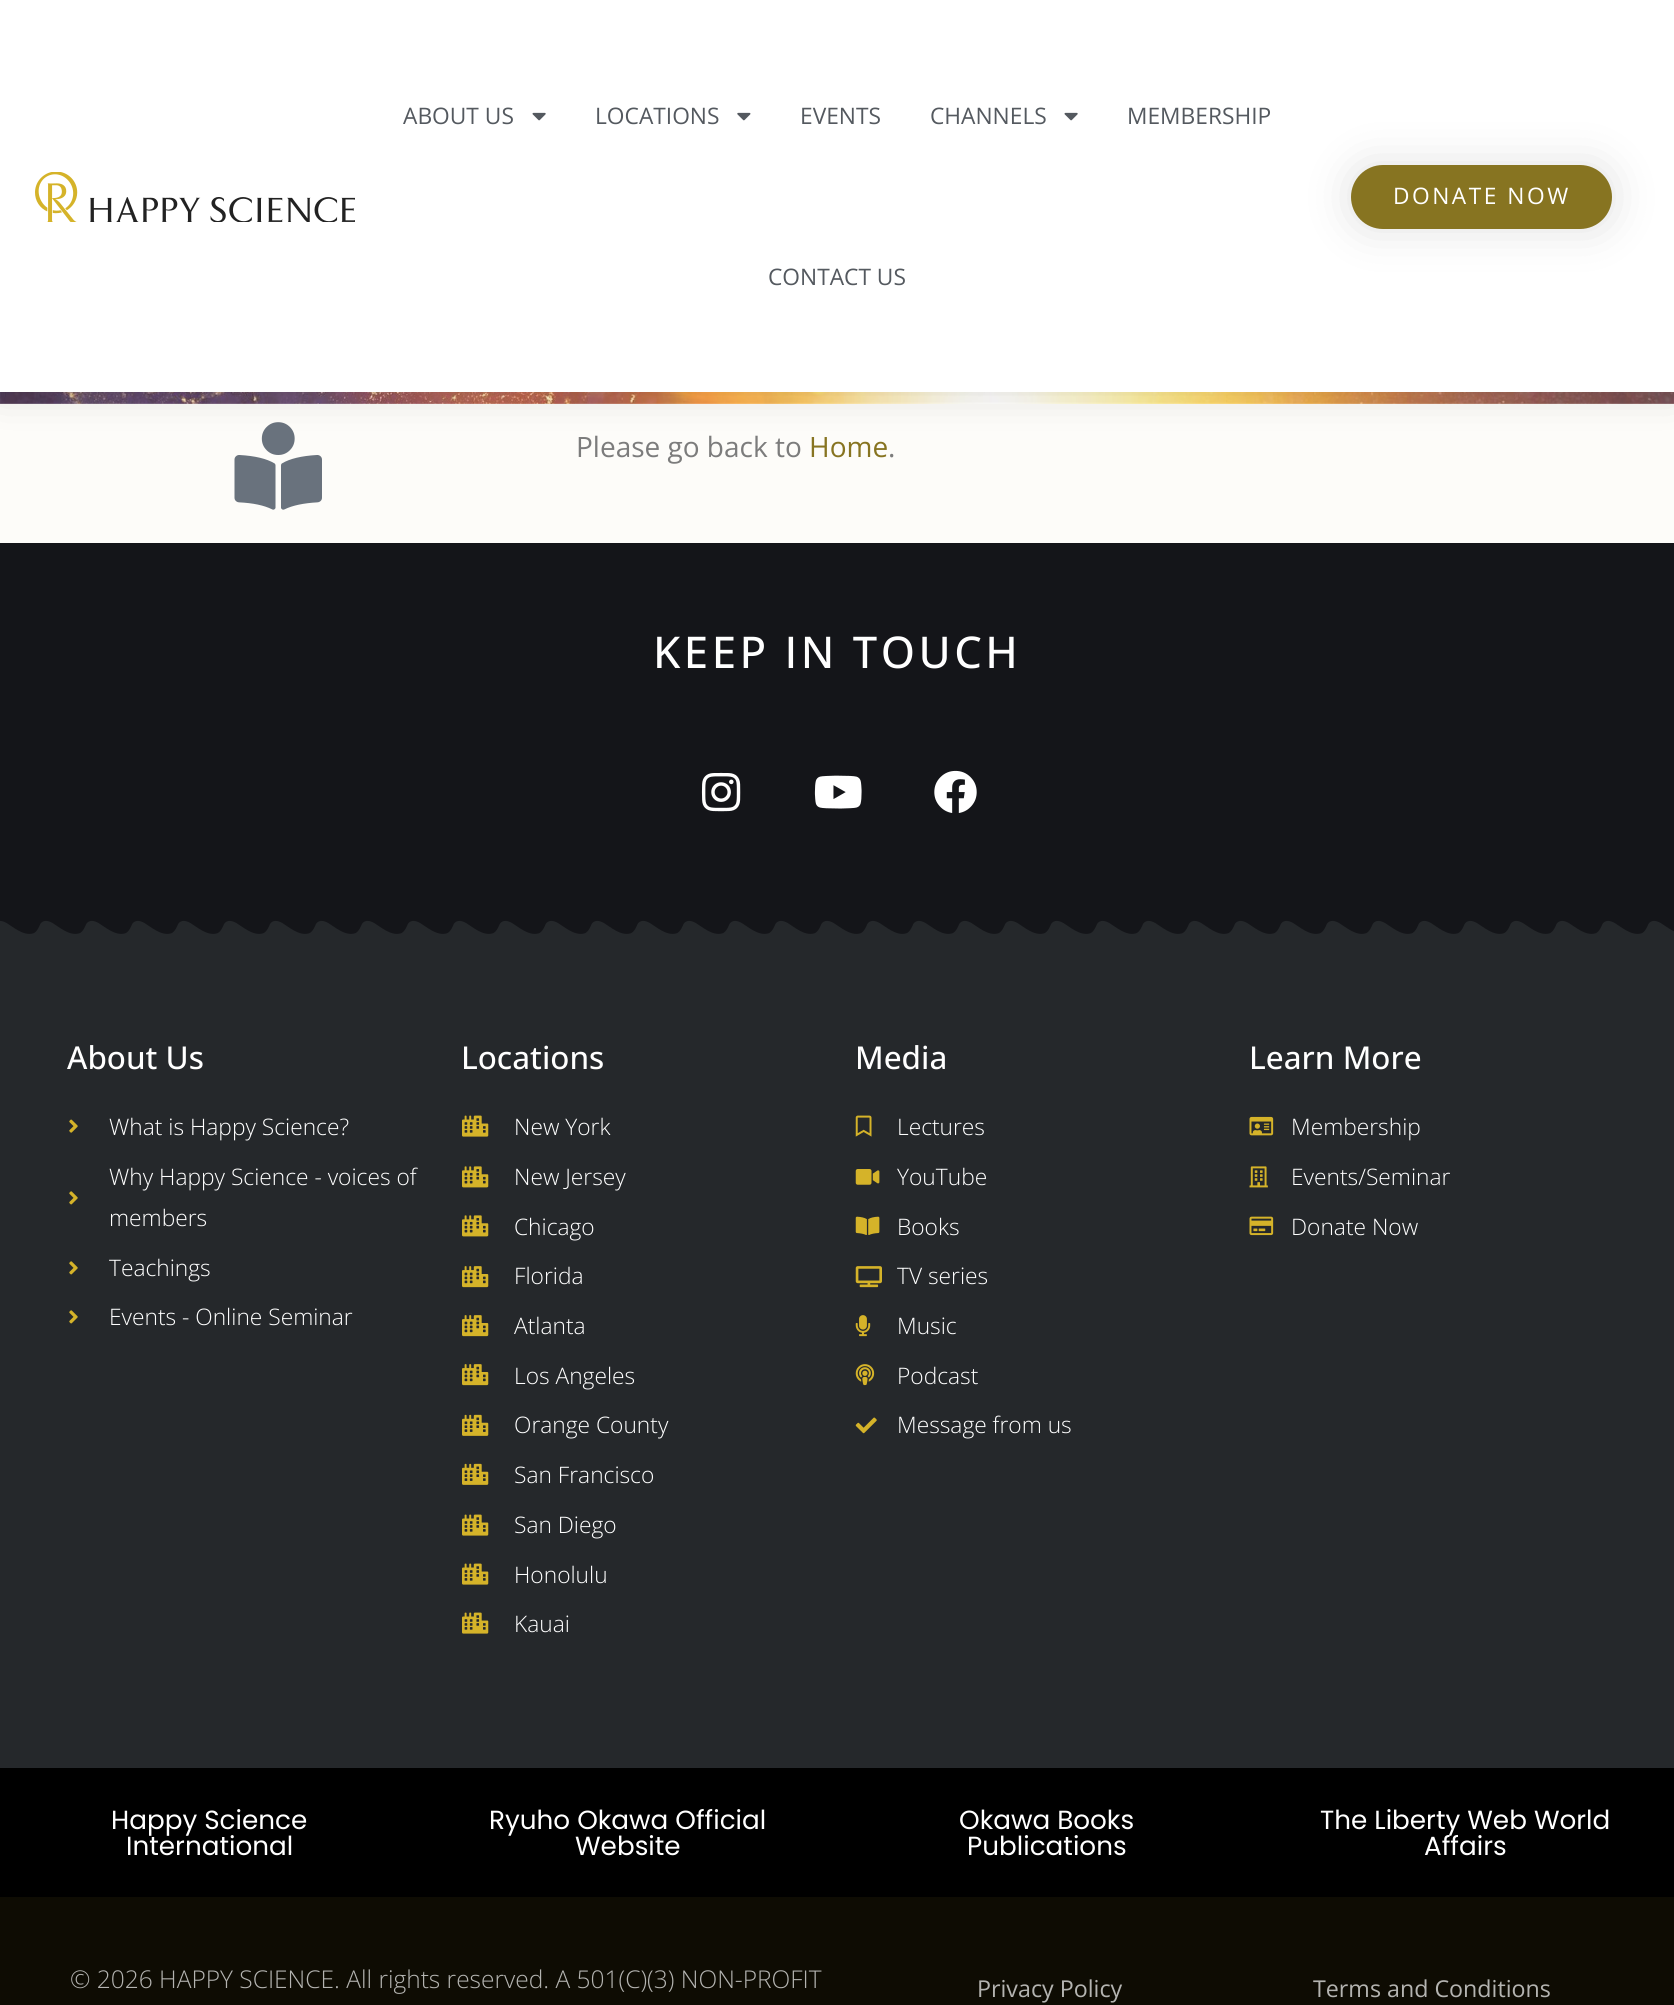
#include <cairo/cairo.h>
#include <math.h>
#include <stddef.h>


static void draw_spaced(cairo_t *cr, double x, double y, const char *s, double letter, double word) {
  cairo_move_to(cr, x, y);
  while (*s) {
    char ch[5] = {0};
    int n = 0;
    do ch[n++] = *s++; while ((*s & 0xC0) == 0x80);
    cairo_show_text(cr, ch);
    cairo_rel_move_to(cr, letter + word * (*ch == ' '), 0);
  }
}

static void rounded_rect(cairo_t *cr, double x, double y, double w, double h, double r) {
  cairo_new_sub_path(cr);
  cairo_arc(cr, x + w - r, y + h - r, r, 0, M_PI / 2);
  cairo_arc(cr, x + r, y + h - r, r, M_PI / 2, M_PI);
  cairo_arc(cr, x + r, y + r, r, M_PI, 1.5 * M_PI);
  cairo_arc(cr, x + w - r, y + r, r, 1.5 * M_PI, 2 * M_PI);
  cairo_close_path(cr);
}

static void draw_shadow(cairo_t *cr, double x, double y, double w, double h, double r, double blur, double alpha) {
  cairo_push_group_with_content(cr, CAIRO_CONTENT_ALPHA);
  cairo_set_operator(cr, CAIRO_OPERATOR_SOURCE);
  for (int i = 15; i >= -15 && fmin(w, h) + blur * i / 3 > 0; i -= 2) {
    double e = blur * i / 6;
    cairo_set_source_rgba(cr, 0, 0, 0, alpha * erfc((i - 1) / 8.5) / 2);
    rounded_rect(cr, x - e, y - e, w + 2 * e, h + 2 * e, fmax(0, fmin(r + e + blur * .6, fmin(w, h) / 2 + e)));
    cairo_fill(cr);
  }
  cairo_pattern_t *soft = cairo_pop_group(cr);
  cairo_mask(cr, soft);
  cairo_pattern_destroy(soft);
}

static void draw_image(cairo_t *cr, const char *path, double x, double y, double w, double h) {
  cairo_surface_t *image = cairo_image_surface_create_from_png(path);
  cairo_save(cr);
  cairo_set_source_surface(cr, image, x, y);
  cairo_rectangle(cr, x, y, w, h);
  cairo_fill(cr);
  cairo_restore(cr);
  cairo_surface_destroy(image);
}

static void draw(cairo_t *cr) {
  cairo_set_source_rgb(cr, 253 / 255.0, 252 / 255.0, 249 / 255.0);
  cairo_paint(cr);
  draw_image(cr, "images/4.png", 0, 392, 1674, 12);
  draw_image(cr, "images/5.png", 234, 422, 88, 88);
  cairo_set_source_rgb(cr, 0, 0, 0);
  draw_shadow(cr, 0, 0, 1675, 392, 0, 21, 0.15);
  cairo_set_source_rgb(cr, 1, 1, 1);
  cairo_rectangle(cr, 0, 0, 1674, 392);
  cairo_fill(cr);
  draw_image(cr, "images/1.png", 35, 172, 320, 50);
  draw_image(cr, "images/2.png", 532, 112, 14, 9);
  draw_image(cr, "images/3.png", 737, 112, 14, 9);
  draw_image(cr, "images/2.png", 1064, 112, 14, 9);
  cairo_set_source_rgb(cr, 0, 0, 0);
  draw_shadow(cr, 1351, 165, 261, 64, 32, 23.5, 0.12);
  cairo_set_source_rgb(cr, 135 / 255.0, 116 / 255.0, 33 / 255.0);
  rounded_rect(cr, 1351, 165, 261, 64, 32);
  cairo_fill(cr);
  cairo_set_source_rgb(cr, 20 / 255.0, 21 / 255.0, 25 / 255.0);
  cairo_rectangle(cr, 0, 543, 1674, 376);
  cairo_fill(cr);
  draw_image(cr, "images/6.png", 701, 772, 40, 40);
  draw_image(cr, "images/7.png", 814, 775, 48, 34);
  draw_image(cr, "images/8.png", 934, 770, 43, 43);
  cairo_set_source_rgb(cr, 37 / 255.0, 40 / 255.0, 43 / 255.0);
  cairo_rectangle(cr, 0, 920, 1674, 848);
  cairo_fill(cr);
  draw_image(cr, "images/9.png", 0, 919, 1674, 15);
  draw_image(cr, "images/10.png", 69, 1119, 9, 14);
  draw_image(cr, "images/11.png", 69, 1191, 9, 14);
  draw_image(cr, "images/11.png", 69, 1261, 9, 14);
  draw_image(cr, "images/11.png", 69, 1310, 9, 14);
  draw_image(cr, "images/12.png", 462, 1115, 27, 22);
  draw_image(cr, "images/13.png", 462, 1166, 27, 22);
  draw_image(cr, "images/13.png", 462, 1215, 27, 22);
  draw_image(cr, "images/14.png", 462, 1266, 27, 22);
  draw_image(cr, "images/14.png", 462, 1315, 27, 22);
  draw_image(cr, "images/14.png", 462, 1364, 27, 22);
  draw_image(cr, "images/15.png", 462, 1414, 27, 22);
  draw_image(cr, "images/15.png", 462, 1463, 27, 22);
  draw_image(cr, "images/12.png", 462, 1514, 27, 22);
  draw_image(cr, "images/12.png", 462, 1563, 27, 22);
  draw_image(cr, "images/12.png", 462, 1612, 27, 22);
  draw_image(cr, "images/16.png", 855, 1115, 17, 22);
  draw_image(cr, "images/17.png", 855, 1169, 25, 16);
  draw_image(cr, "images/18.png", 855, 1216, 25, 19);
  draw_image(cr, "images/19.png", 855, 1266, 27, 22);
  draw_image(cr, "images/20.png", 855, 1315, 16, 22);
  draw_image(cr, "images/21.png", 855, 1364, 20, 22);
  draw_image(cr, "images/22.png", 855, 1417, 22, 17);
  draw_image(cr, "images/23.png", 1249, 1116, 25, 20);
  draw_image(cr, "images/24.png", 1249, 1166, 19, 22);
  draw_image(cr, "images/25.png", 1249, 1216, 25, 20);
  cairo_set_source_rgb(cr, 0, 0, 0);
  cairo_rectangle(cr, 0, 1768, 1674, 129);
  cairo_fill(cr);
  cairo_set_source_rgb(cr, 14 / 255.0, 12 / 255.0, 3 / 255.0);
  cairo_rectangle(cr, 0, 1897, 1674, 108);
  cairo_fill(cr);
  cairo_select_font_face(cr, "Open Sans", CAIRO_FONT_SLANT_NORMAL, CAIRO_FONT_WEIGHT_NORMAL);
  cairo_set_font_size(cr, 22.75);
  cairo_set_source_rgb(cr, 84 / 255.0, 89 / 255.0, 95 / 255.0);
  cairo_move_to(cr, 403, 124);
  cairo_show_text(cr, "ABOUT US");
  cairo_move_to(cr, 595, 124);
  cairo_show_text(cr, "LOCATIONS");
  cairo_move_to(cr, 800, 124);
  cairo_show_text(cr, "EVENTS");
  cairo_move_to(cr, 930, 124);
  cairo_show_text(cr, "CHANNELS");
  cairo_move_to(cr, 1127, 124);
  cairo_show_text(cr, "MEMBERSHIP");
  cairo_move_to(cr, 768, 285);
  cairo_show_text(cr, "CONTACT US");
  cairo_set_source_rgb(cr, 1, 1, 1);
  draw_spaced(cr, 1393, 204, "DONATE NOW", 2.5, 0);
  cairo_set_font_size(cr, 28);
  cairo_set_source_rgb(cr, 124 / 255.0, 124 / 255.0, 124 / 255.0);
  cairo_move_to(cr, 576, 457);
  cairo_show_text(cr, "Please go back to");
  cairo_set_source_rgb(cr, 135 / 255.0, 116 / 255.0, 33 / 255.0);
  cairo_move_to(cr, 809, 457);
  cairo_show_text(cr, "Home");
  cairo_set_source_rgb(cr, 124 / 255.0, 124 / 255.0, 124 / 255.0);
  cairo_move_to(cr, 888, 457);
  cairo_show_text(cr, ".");
  cairo_select_font_face(cr, "Open Sans Medium", CAIRO_FONT_SLANT_NORMAL, CAIRO_FONT_WEIGHT_NORMAL);
  cairo_set_font_size(cr, 43.75);
  cairo_set_source_rgb(cr, 1, 1, 1);
  draw_spaced(cr, 653, 668, "KEEP IN TOUCH", 3.5, 0);
  cairo_set_font_size(cr, 31.5);
  cairo_move_to(cr, 67, 1069);
  cairo_show_text(cr, "About Us");
  cairo_select_font_face(cr, "Open Sans Light", CAIRO_FONT_SLANT_NORMAL, CAIRO_FONT_WEIGHT_NORMAL);
  cairo_set_font_size(cr, 22.75);
  cairo_move_to(cr, 109, 1135);
  cairo_show_text(cr, "What is Happy Science?");
  cairo_move_to(cr, 109, 1185);
  cairo_show_text(cr, "Why Happy Science - voices of");
  cairo_move_to(cr, 109, 1226);
  cairo_show_text(cr, "members");
  cairo_move_to(cr, 109, 1276);
  cairo_show_text(cr, "Teachings");
  cairo_move_to(cr, 109, 1325);
  cairo_show_text(cr, "Events - Online Seminar");
  cairo_select_font_face(cr, "Open Sans Medium", CAIRO_FONT_SLANT_NORMAL, CAIRO_FONT_WEIGHT_NORMAL);
  cairo_set_font_size(cr, 31.5);
  cairo_move_to(cr, 461, 1069);
  cairo_show_text(cr, "Locations");
  cairo_select_font_face(cr, "Open Sans Light", CAIRO_FONT_SLANT_NORMAL, CAIRO_FONT_WEIGHT_NORMAL);
  cairo_set_font_size(cr, 22.75);
  cairo_move_to(cr, 514, 1135);
  cairo_show_text(cr, "New York");
  cairo_move_to(cr, 514, 1185);
  cairo_show_text(cr, "New Jersey");
  cairo_move_to(cr, 514, 1235);
  cairo_show_text(cr, "Chicago");
  cairo_move_to(cr, 514, 1284);
  cairo_show_text(cr, "Florida");
  cairo_move_to(cr, 514, 1334);
  cairo_show_text(cr, "Atlanta");
  cairo_move_to(cr, 514, 1384);
  cairo_show_text(cr, "Los Angeles");
  cairo_move_to(cr, 514, 1433);
  cairo_show_text(cr, "Orange County");
  cairo_move_to(cr, 514, 1483);
  cairo_show_text(cr, "San Francisco");
  cairo_move_to(cr, 514, 1533);
  cairo_show_text(cr, "San Diego");
  cairo_move_to(cr, 514, 1583);
  cairo_show_text(cr, "Honolulu");
  cairo_move_to(cr, 514, 1632);
  cairo_show_text(cr, "Kauai");
  cairo_select_font_face(cr, "Open Sans Medium", CAIRO_FONT_SLANT_NORMAL, CAIRO_FONT_WEIGHT_NORMAL);
  cairo_set_font_size(cr, 31.5);
  cairo_move_to(cr, 855, 1069);
  cairo_show_text(cr, "Media");
  cairo_select_font_face(cr, "Open Sans Light", CAIRO_FONT_SLANT_NORMAL, CAIRO_FONT_WEIGHT_NORMAL);
  cairo_set_font_size(cr, 22.75);
  cairo_move_to(cr, 897, 1135);
  cairo_show_text(cr, "Lectures");
  cairo_move_to(cr, 897, 1185);
  cairo_show_text(cr, "YouTube");
  cairo_move_to(cr, 897, 1235);
  cairo_show_text(cr, "Books");
  cairo_move_to(cr, 897, 1284);
  cairo_show_text(cr, "TV series");
  cairo_move_to(cr, 897, 1334);
  cairo_show_text(cr, "Music");
  cairo_move_to(cr, 897, 1384);
  cairo_show_text(cr, "Podcast");
  cairo_move_to(cr, 897, 1433);
  cairo_show_text(cr, "Message from us");
  cairo_select_font_face(cr, "Open Sans Medium", CAIRO_FONT_SLANT_NORMAL, CAIRO_FONT_WEIGHT_NORMAL);
  cairo_set_font_size(cr, 31.5);
  cairo_move_to(cr, 1249, 1069);
  cairo_show_text(cr, "Learn More");
  cairo_select_font_face(cr, "Open Sans Light", CAIRO_FONT_SLANT_NORMAL, CAIRO_FONT_WEIGHT_NORMAL);
  cairo_set_font_size(cr, 22.75);
  cairo_move_to(cr, 1291, 1135);
  cairo_show_text(cr, "Membership");
  cairo_move_to(cr, 1291, 1185);
  cairo_show_text(cr, "Events/Seminar");
  cairo_move_to(cr, 1291, 1235);
  cairo_show_text(cr, "Donate Now");
  cairo_select_font_face(cr, "Poppins", CAIRO_FONT_SLANT_NORMAL, CAIRO_FONT_WEIGHT_NORMAL);
  cairo_set_font_size(cr, 26.25);
  cairo_move_to(cr, 111, 1829);
  cairo_show_text(cr, "Happy Science");
  cairo_move_to(cr, 126, 1855);
  cairo_show_text(cr, "International");
  cairo_move_to(cr, 489, 1829);
  cairo_show_text(cr, "Ryuho Okawa Official");
  cairo_move_to(cr, 575, 1855);
  cairo_show_text(cr, "Website");
  cairo_move_to(cr, 959, 1829);
  cairo_show_text(cr, "Okawa Books");
  cairo_move_to(cr, 967, 1855);
  cairo_show_text(cr, "Publications");
  cairo_move_to(cr, 1320, 1829);
  cairo_show_text(cr, "The Liberty Web World");
  cairo_move_to(cr, 1424, 1855);
  cairo_show_text(cr, "Affairs");
  cairo_select_font_face(cr, "Open Sans Light", CAIRO_FONT_SLANT_NORMAL, CAIRO_FONT_WEIGHT_NORMAL);
  cairo_set_font_size(cr, 24.5);
  cairo_set_source_rgb(cr, 180 / 255.0, 180 / 255.0, 177 / 255.0);
  cairo_move_to(cr, 70, 1988);
  cairo_show_text(cr, "© 2026 HAPPY SCIENCE. All rights reserved. A 501(C)(3) NON-PROFIT");
  cairo_select_font_face(cr, "Open Sans", CAIRO_FONT_SLANT_NORMAL, CAIRO_FONT_WEIGHT_NORMAL);
  cairo_set_font_size(cr, 23.25);
  cairo_move_to(cr, 977, 1997);
  cairo_show_text(cr, "Privacy Policy");
  cairo_move_to(cr, 1313, 1997);
  cairo_show_text(cr, "Terms and Conditions");
}

int main(void) {
  cairo_surface_t *surface = cairo_image_surface_create(CAIRO_FORMAT_RGB24, 1674, 2005);
  cairo_t *cr = cairo_create(surface);
  cairo_font_options_t *options = cairo_font_options_create();
  cairo_font_options_set_hint_metrics(options, CAIRO_HINT_METRICS_OFF);
  cairo_font_options_set_hint_style(options, CAIRO_HINT_STYLE_NONE);
  cairo_set_font_options(cr, options);
  cairo_set_miter_limit(cr, 4);
  draw(cr);
  cairo_surface_write_to_png(surface, "out.png");
  cairo_font_options_destroy(options);
  cairo_destroy(cr);
  cairo_surface_destroy(surface);
  return 0;
}
